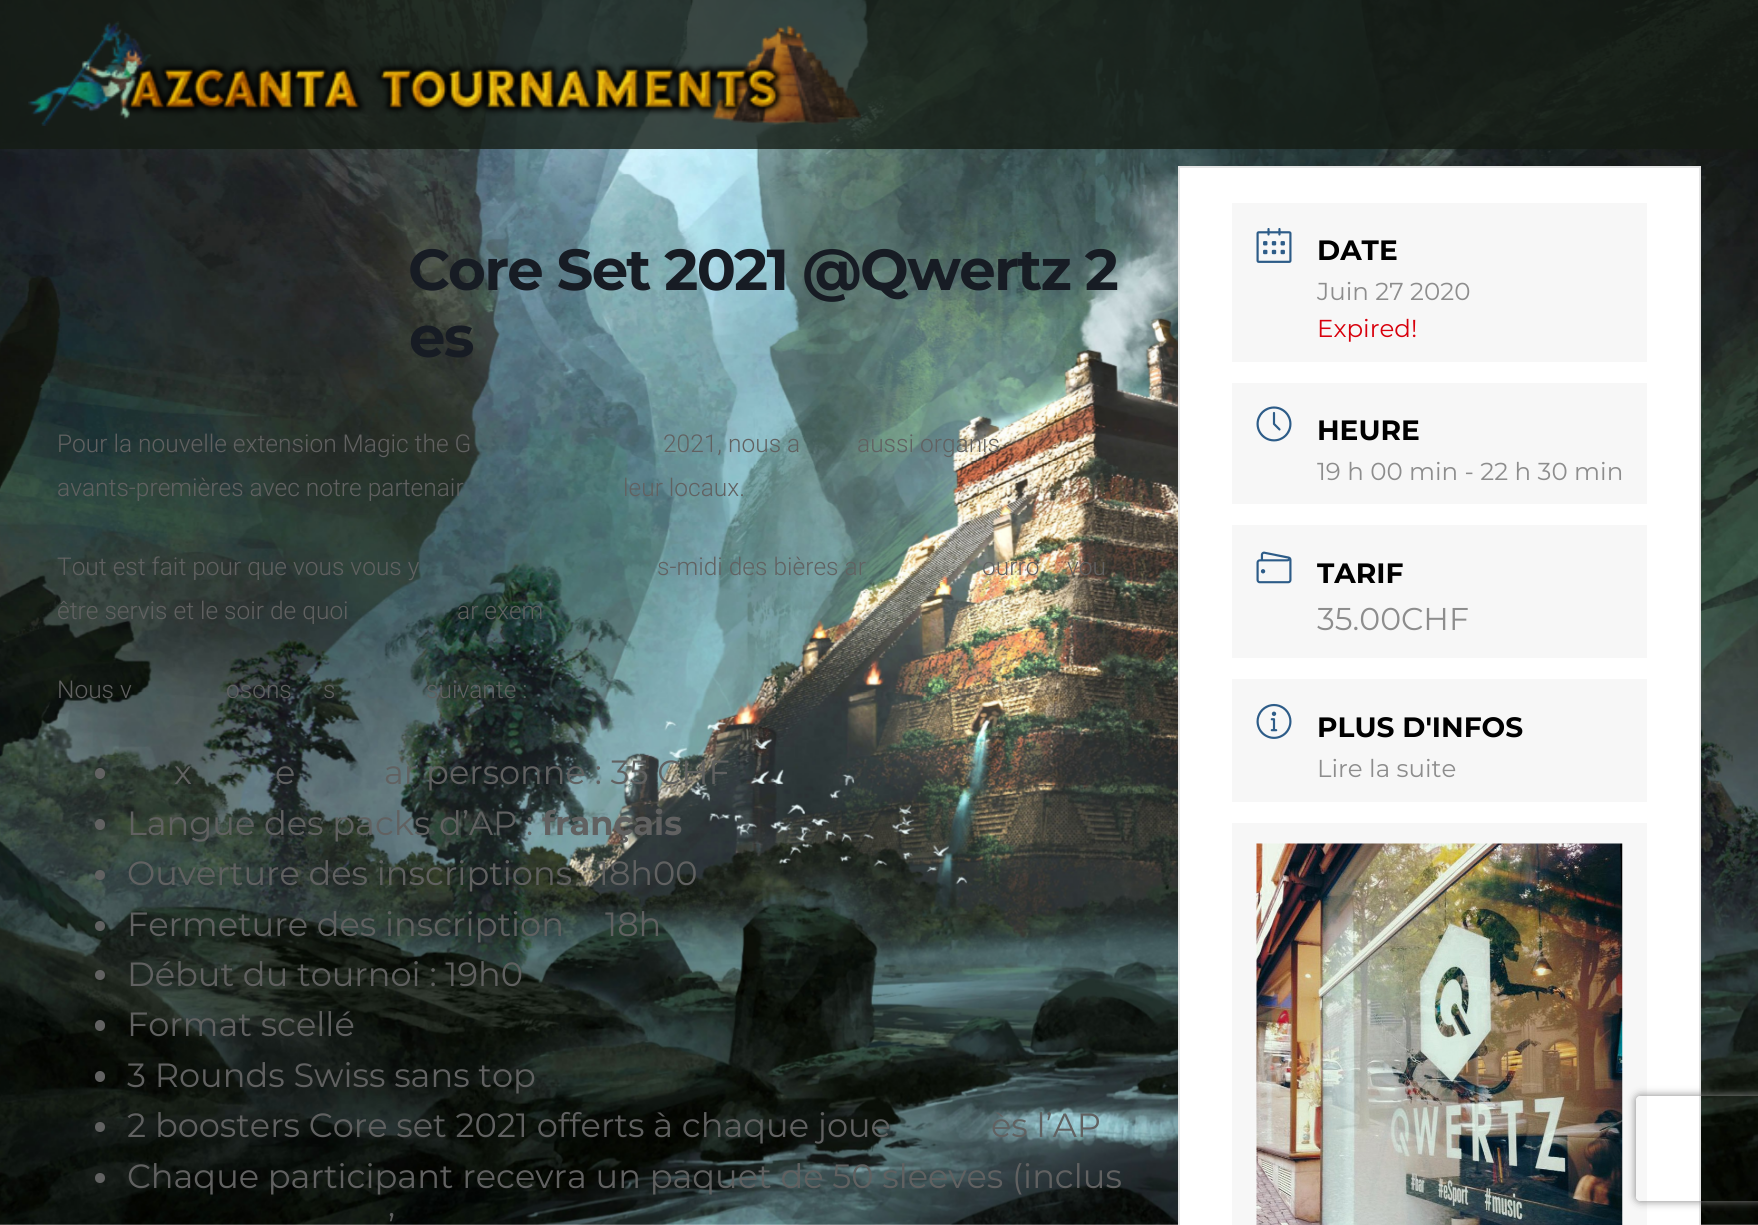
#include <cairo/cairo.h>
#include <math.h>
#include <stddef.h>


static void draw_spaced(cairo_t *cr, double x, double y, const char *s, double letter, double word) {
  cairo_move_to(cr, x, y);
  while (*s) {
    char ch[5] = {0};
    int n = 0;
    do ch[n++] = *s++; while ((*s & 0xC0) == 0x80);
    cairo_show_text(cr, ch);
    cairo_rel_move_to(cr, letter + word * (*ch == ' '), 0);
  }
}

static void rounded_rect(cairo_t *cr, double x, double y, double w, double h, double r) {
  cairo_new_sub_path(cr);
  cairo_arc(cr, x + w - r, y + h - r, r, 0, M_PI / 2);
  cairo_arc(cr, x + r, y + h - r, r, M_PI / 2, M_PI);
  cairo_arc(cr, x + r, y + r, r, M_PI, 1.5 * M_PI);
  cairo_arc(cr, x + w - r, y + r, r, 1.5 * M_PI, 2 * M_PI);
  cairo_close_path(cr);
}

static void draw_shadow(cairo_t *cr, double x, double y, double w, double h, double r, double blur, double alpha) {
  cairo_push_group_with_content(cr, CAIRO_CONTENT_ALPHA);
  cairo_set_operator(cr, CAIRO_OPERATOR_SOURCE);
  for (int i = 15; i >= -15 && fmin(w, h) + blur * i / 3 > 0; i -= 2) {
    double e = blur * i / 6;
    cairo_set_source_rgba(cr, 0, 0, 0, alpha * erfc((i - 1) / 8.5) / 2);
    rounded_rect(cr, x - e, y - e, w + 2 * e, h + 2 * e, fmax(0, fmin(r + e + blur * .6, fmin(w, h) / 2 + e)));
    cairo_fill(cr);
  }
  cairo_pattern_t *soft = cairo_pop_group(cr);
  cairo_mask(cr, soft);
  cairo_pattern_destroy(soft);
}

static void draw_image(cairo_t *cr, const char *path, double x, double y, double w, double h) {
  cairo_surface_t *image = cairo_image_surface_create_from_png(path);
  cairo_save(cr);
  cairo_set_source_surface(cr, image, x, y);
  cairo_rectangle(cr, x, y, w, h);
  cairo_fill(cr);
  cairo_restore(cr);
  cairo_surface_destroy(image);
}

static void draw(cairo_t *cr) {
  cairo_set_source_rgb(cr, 1, 1, 1);
  cairo_paint(cr);
  draw_image(cr, "images/1.png", 0, 0, 1758, 1225);
  cairo_set_source_rgba(cr, 21 / 255.0, 28 / 255.0, 20 / 255.0, 0.8);
  cairo_rectangle(cr, 0, 0, 1758, 149);
  cairo_fill(cr);
  draw_image(cr, "images/2.png", 28, 21, 833, 105);
  cairo_set_source_rgb(cr, 98 / 255.0, 98 / 255.0, 98 / 255.0);
  rounded_rect(cr, 95, 768, 10, 11, 5);
  cairo_fill(cr);
  rounded_rect(cr, 95, 819, 10, 11, 5);
  cairo_fill(cr);
  cairo_arc(cr, 100, 875, 5, 0, 2 * M_PI);
  cairo_fill(cr);
  cairo_arc(cr, 100, 926, 5, 0, 2 * M_PI);
  cairo_fill(cr);
  cairo_arc(cr, 100, 975, 5, 0, 2 * M_PI);
  cairo_fill(cr);
  rounded_rect(cr, 95, 1020, 10, 11, 5);
  cairo_fill(cr);
  rounded_rect(cr, 95, 1071, 10, 11, 5);
  cairo_fill(cr);
  cairo_arc(cr, 100, 1127, 5, 0, 2 * M_PI);
  cairo_fill(cr);
  cairo_arc(cr, 100, 1178, 5, 0, 2 * M_PI);
  cairo_fill(cr);
  cairo_set_source_rgb(cr, 1, 1, 1);
  cairo_rectangle(cr, 1179, 167, 521, 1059);
  cairo_fill_preserve(cr);
  cairo_set_source_rgb(cr, 230 / 255.0, 230 / 255.0, 230 / 255.0);
  cairo_stroke(cr);
  cairo_set_source_rgb(cr, 247 / 255.0, 247 / 255.0, 247 / 255.0);
  cairo_rectangle(cr, 1232, 203, 415, 159);
  cairo_fill(cr);
  draw_image(cr, "images/3.png", 1256, 228, 36, 35);
  cairo_rectangle(cr, 1232, 383, 415, 121);
  cairo_fill(cr);
  draw_image(cr, "images/4.png", 1256, 406, 36, 36);
  cairo_rectangle(cr, 1232, 525, 415, 133);
  cairo_fill(cr);
  draw_image(cr, "images/5.png", 1256, 551, 36, 33);
  cairo_rectangle(cr, 1232, 679, 415, 123);
  cairo_fill(cr);
  draw_image(cr, "images/6.png", 1256, 703, 36, 36);
  cairo_rectangle(cr, 1232, 823, 415, 402);
  cairo_fill(cr);
  draw_image(cr, "images/7.png", 1256, 843, 367, 382);
  cairo_save(cr);
  cairo_set_fill_rule(cr, CAIRO_FILL_RULE_EVEN_ODD);
  cairo_new_path(cr);
  cairo_move_to(cr, 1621, 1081);
  cairo_line_to(cr, 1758, 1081);
  cairo_line_to(cr, 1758, 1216);
  cairo_line_to(cr, 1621, 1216);
  cairo_close_path(cr);
  cairo_move_to(cr, 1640, 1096);
  cairo_line_to(cr, 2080, 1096);
  cairo_curve_to(cr, 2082, 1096, 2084, 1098, 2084, 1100);
  cairo_line_to(cr, 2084, 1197);
  cairo_curve_to(cr, 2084, 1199, 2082, 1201, 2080, 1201);
  cairo_line_to(cr, 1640, 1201);
  cairo_curve_to(cr, 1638, 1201, 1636, 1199, 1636, 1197);
  cairo_line_to(cr, 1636, 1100);
  cairo_curve_to(cr, 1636, 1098, 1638, 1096, 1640, 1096);
  cairo_close_path(cr);
  cairo_clip(cr);
  cairo_set_source_rgb(cr, 128 / 255.0, 128 / 255.0, 128 / 255.0);
  draw_shadow(cr, 1636, 1096, 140, 105, 4, 4.5, 1);
  cairo_restore(cr);
  cairo_select_font_face(cr, "Montserrat", CAIRO_FONT_SLANT_NORMAL, CAIRO_FONT_WEIGHT_BOLD);
  cairo_set_font_size(cr, 57.75);
  cairo_set_source_rgb(cr, 23 / 255.0, 28 / 255.0, 36 / 255.0);
  draw_spaced(cr, 408, 290, "Core Set 2021 @Qwertz 2", -1.75, 0);
  draw_spaced(cr, 409, 357, "es", -1.75, 0);
  cairo_select_font_face(cr, "Roboto Light", CAIRO_FONT_SLANT_NORMAL, CAIRO_FONT_WEIGHT_NORMAL);
  cairo_set_font_size(cr, 24.5);
  cairo_set_source_rgb(cr, 97 / 255.0, 97 / 255.0, 97 / 255.0);
  cairo_move_to(cr, 57, 452);
  cairo_show_text(cr, "Pour la nouvelle extension Magic the G");
  cairo_move_to(cr, 663, 452);
  cairo_show_text(cr, "2021, nous a");
  cairo_move_to(cr, 857, 452);
  cairo_show_text(cr, "aussi organis");
  cairo_move_to(cr, 57, 496);
  cairo_show_text(cr, "avants-premières avec notre partenair");
  cairo_move_to(cr, 623, 496);
  cairo_show_text(cr, "leur locaux.");
  cairo_move_to(cr, 57, 575);
  cairo_show_text(cr, "Tout est fait pour que vous vous y");
  cairo_move_to(cr, 657, 575);
  cairo_show_text(cr, "s-midi des bières ar");
  cairo_move_to(cr, 982, 575);
  cairo_show_text(cr, "ourro");
  cairo_move_to(cr, 1067, 575);
  cairo_show_text(cr, "vou");
  cairo_move_to(cr, 57, 619);
  cairo_show_text(cr, "être servis et le soir de quoi");
  cairo_move_to(cr, 457, 619);
  cairo_show_text(cr, "ar exem");
  cairo_move_to(cr, 57, 698);
  cairo_show_text(cr, "Nous v");
  cairo_move_to(cr, 226, 698);
  cairo_show_text(cr, "osons");
  cairo_move_to(cr, 323, 698);
  cairo_show_text(cr, "s");
  cairo_move_to(cr, 426, 698);
  cairo_show_text(cr, "suivante :");
  cairo_select_font_face(cr, "Montserrat", CAIRO_FONT_SLANT_NORMAL, CAIRO_FONT_WEIGHT_NORMAL);
  cairo_set_font_size(cr, 33.6);
  cairo_move_to(cr, 174, 784);
  cairo_show_text(cr, "x");
  cairo_move_to(cr, 275, 784);
  cairo_show_text(cr, "e");
  cairo_move_to(cr, 384, 784);
  cairo_show_text(cr, "ar personne : 35 CHF");
  cairo_move_to(cr, 127, 835);
  cairo_show_text(cr, "Langue des packs d’AP :");
  cairo_select_font_face(cr, "Montserrat", CAIRO_FONT_SLANT_NORMAL, CAIRO_FONT_WEIGHT_BOLD);
  cairo_move_to(cr, 542, 835);
  cairo_show_text(cr, "français");
  cairo_select_font_face(cr, "Montserrat", CAIRO_FONT_SLANT_NORMAL, CAIRO_FONT_WEIGHT_NORMAL);
  cairo_move_to(cr, 127, 885);
  cairo_show_text(cr, "Ouverture des inscriptions : 18h00");
  cairo_move_to(cr, 127, 936);
  cairo_show_text(cr, "Fermeture des inscription");
  cairo_move_to(cr, 605, 936);
  cairo_show_text(cr, "18h");
  cairo_move_to(cr, 127, 986);
  cairo_show_text(cr, "Début du tournoi : 19h0");
  cairo_move_to(cr, 127, 1036);
  cairo_show_text(cr, "Format scellé");
  cairo_move_to(cr, 127, 1087);
  cairo_show_text(cr, "3 Rounds Swiss sans top");
  cairo_move_to(cr, 127, 1137);
  cairo_show_text(cr, "2 boosters Core set 2021 offerts à chaque joue");
  cairo_move_to(cr, 991, 1137);
  cairo_show_text(cr, "ès l’AP");
  cairo_move_to(cr, 127, 1188);
  cairo_show_text(cr, "Chaque participant recevra un paquet de 50 sleeves (inclus");
  cairo_move_to(cr, 388, 1238);
  cairo_show_text(cr, "’");
  cairo_select_font_face(cr, "Montserrat", CAIRO_FONT_SLANT_NORMAL, CAIRO_FONT_WEIGHT_BOLD);
  cairo_set_font_size(cr, 28);
  cairo_set_source_rgb(cr, 0, 0, 0);
  cairo_move_to(cr, 1317, 260);
  cairo_show_text(cr, "DATE");
  cairo_select_font_face(cr, "Montserrat", CAIRO_FONT_SLANT_NORMAL, CAIRO_FONT_WEIGHT_NORMAL);
  cairo_set_font_size(cr, 24.5);
  cairo_set_source_rgb(cr, 141 / 255.0, 141 / 255.0, 141 / 255.0);
  cairo_move_to(cr, 1317, 300);
  cairo_show_text(cr, "Juin 27 2020");
  cairo_set_source_rgb(cr, 216 / 255.0, 0, 12 / 255.0);
  cairo_move_to(cr, 1317, 337);
  cairo_show_text(cr, "Expired!");
  cairo_select_font_face(cr, "Montserrat", CAIRO_FONT_SLANT_NORMAL, CAIRO_FONT_WEIGHT_BOLD);
  cairo_set_font_size(cr, 28);
  cairo_set_source_rgb(cr, 0, 0, 0);
  cairo_move_to(cr, 1317, 440);
  cairo_show_text(cr, "HEURE");
  cairo_select_font_face(cr, "Montserrat", CAIRO_FONT_SLANT_NORMAL, CAIRO_FONT_WEIGHT_NORMAL);
  cairo_set_font_size(cr, 24.5);
  cairo_set_source_rgb(cr, 141 / 255.0, 141 / 255.0, 141 / 255.0);
  cairo_move_to(cr, 1317, 480);
  cairo_show_text(cr, "19 h 00 min - 22 h 30 min");
  cairo_select_font_face(cr, "Montserrat", CAIRO_FONT_SLANT_NORMAL, CAIRO_FONT_WEIGHT_BOLD);
  cairo_set_font_size(cr, 28);
  cairo_set_source_rgb(cr, 0, 0, 0);
  cairo_move_to(cr, 1317, 583);
  cairo_show_text(cr, "TARIF");
  cairo_select_font_face(cr, "Montserrat", CAIRO_FONT_SLANT_NORMAL, CAIRO_FONT_WEIGHT_NORMAL);
  cairo_set_font_size(cr, 31.5);
  cairo_set_source_rgb(cr, 141 / 255.0, 141 / 255.0, 141 / 255.0);
  cairo_move_to(cr, 1317, 630);
  cairo_show_text(cr, "35.00CHF");
  cairo_select_font_face(cr, "Montserrat", CAIRO_FONT_SLANT_NORMAL, CAIRO_FONT_WEIGHT_BOLD);
  cairo_set_font_size(cr, 28);
  cairo_set_source_rgb(cr, 0, 0, 0);
  cairo_move_to(cr, 1317, 737);
  cairo_show_text(cr, "PLUS D'INFOS");
  cairo_select_font_face(cr, "Montserrat", CAIRO_FONT_SLANT_NORMAL, CAIRO_FONT_WEIGHT_NORMAL);
  cairo_set_font_size(cr, 24.5);
  cairo_set_source_rgb(cr, 141 / 255.0, 141 / 255.0, 141 / 255.0);
  cairo_move_to(cr, 1317, 777);
  cairo_show_text(cr, "Lire la suite");
}

int main(void) {
  cairo_surface_t *surface = cairo_image_surface_create(CAIRO_FORMAT_RGB24, 1758, 1225);
  cairo_t *cr = cairo_create(surface);
  cairo_font_options_t *options = cairo_font_options_create();
  cairo_font_options_set_hint_metrics(options, CAIRO_HINT_METRICS_OFF);
  cairo_font_options_set_hint_style(options, CAIRO_HINT_STYLE_NONE);
  cairo_set_font_options(cr, options);
  cairo_set_miter_limit(cr, 4);
  draw(cr);
  cairo_surface_write_to_png(surface, "out.png");
  cairo_font_options_destroy(options);
  cairo_destroy(cr);
  cairo_surface_destroy(surface);
  return 0;
}
